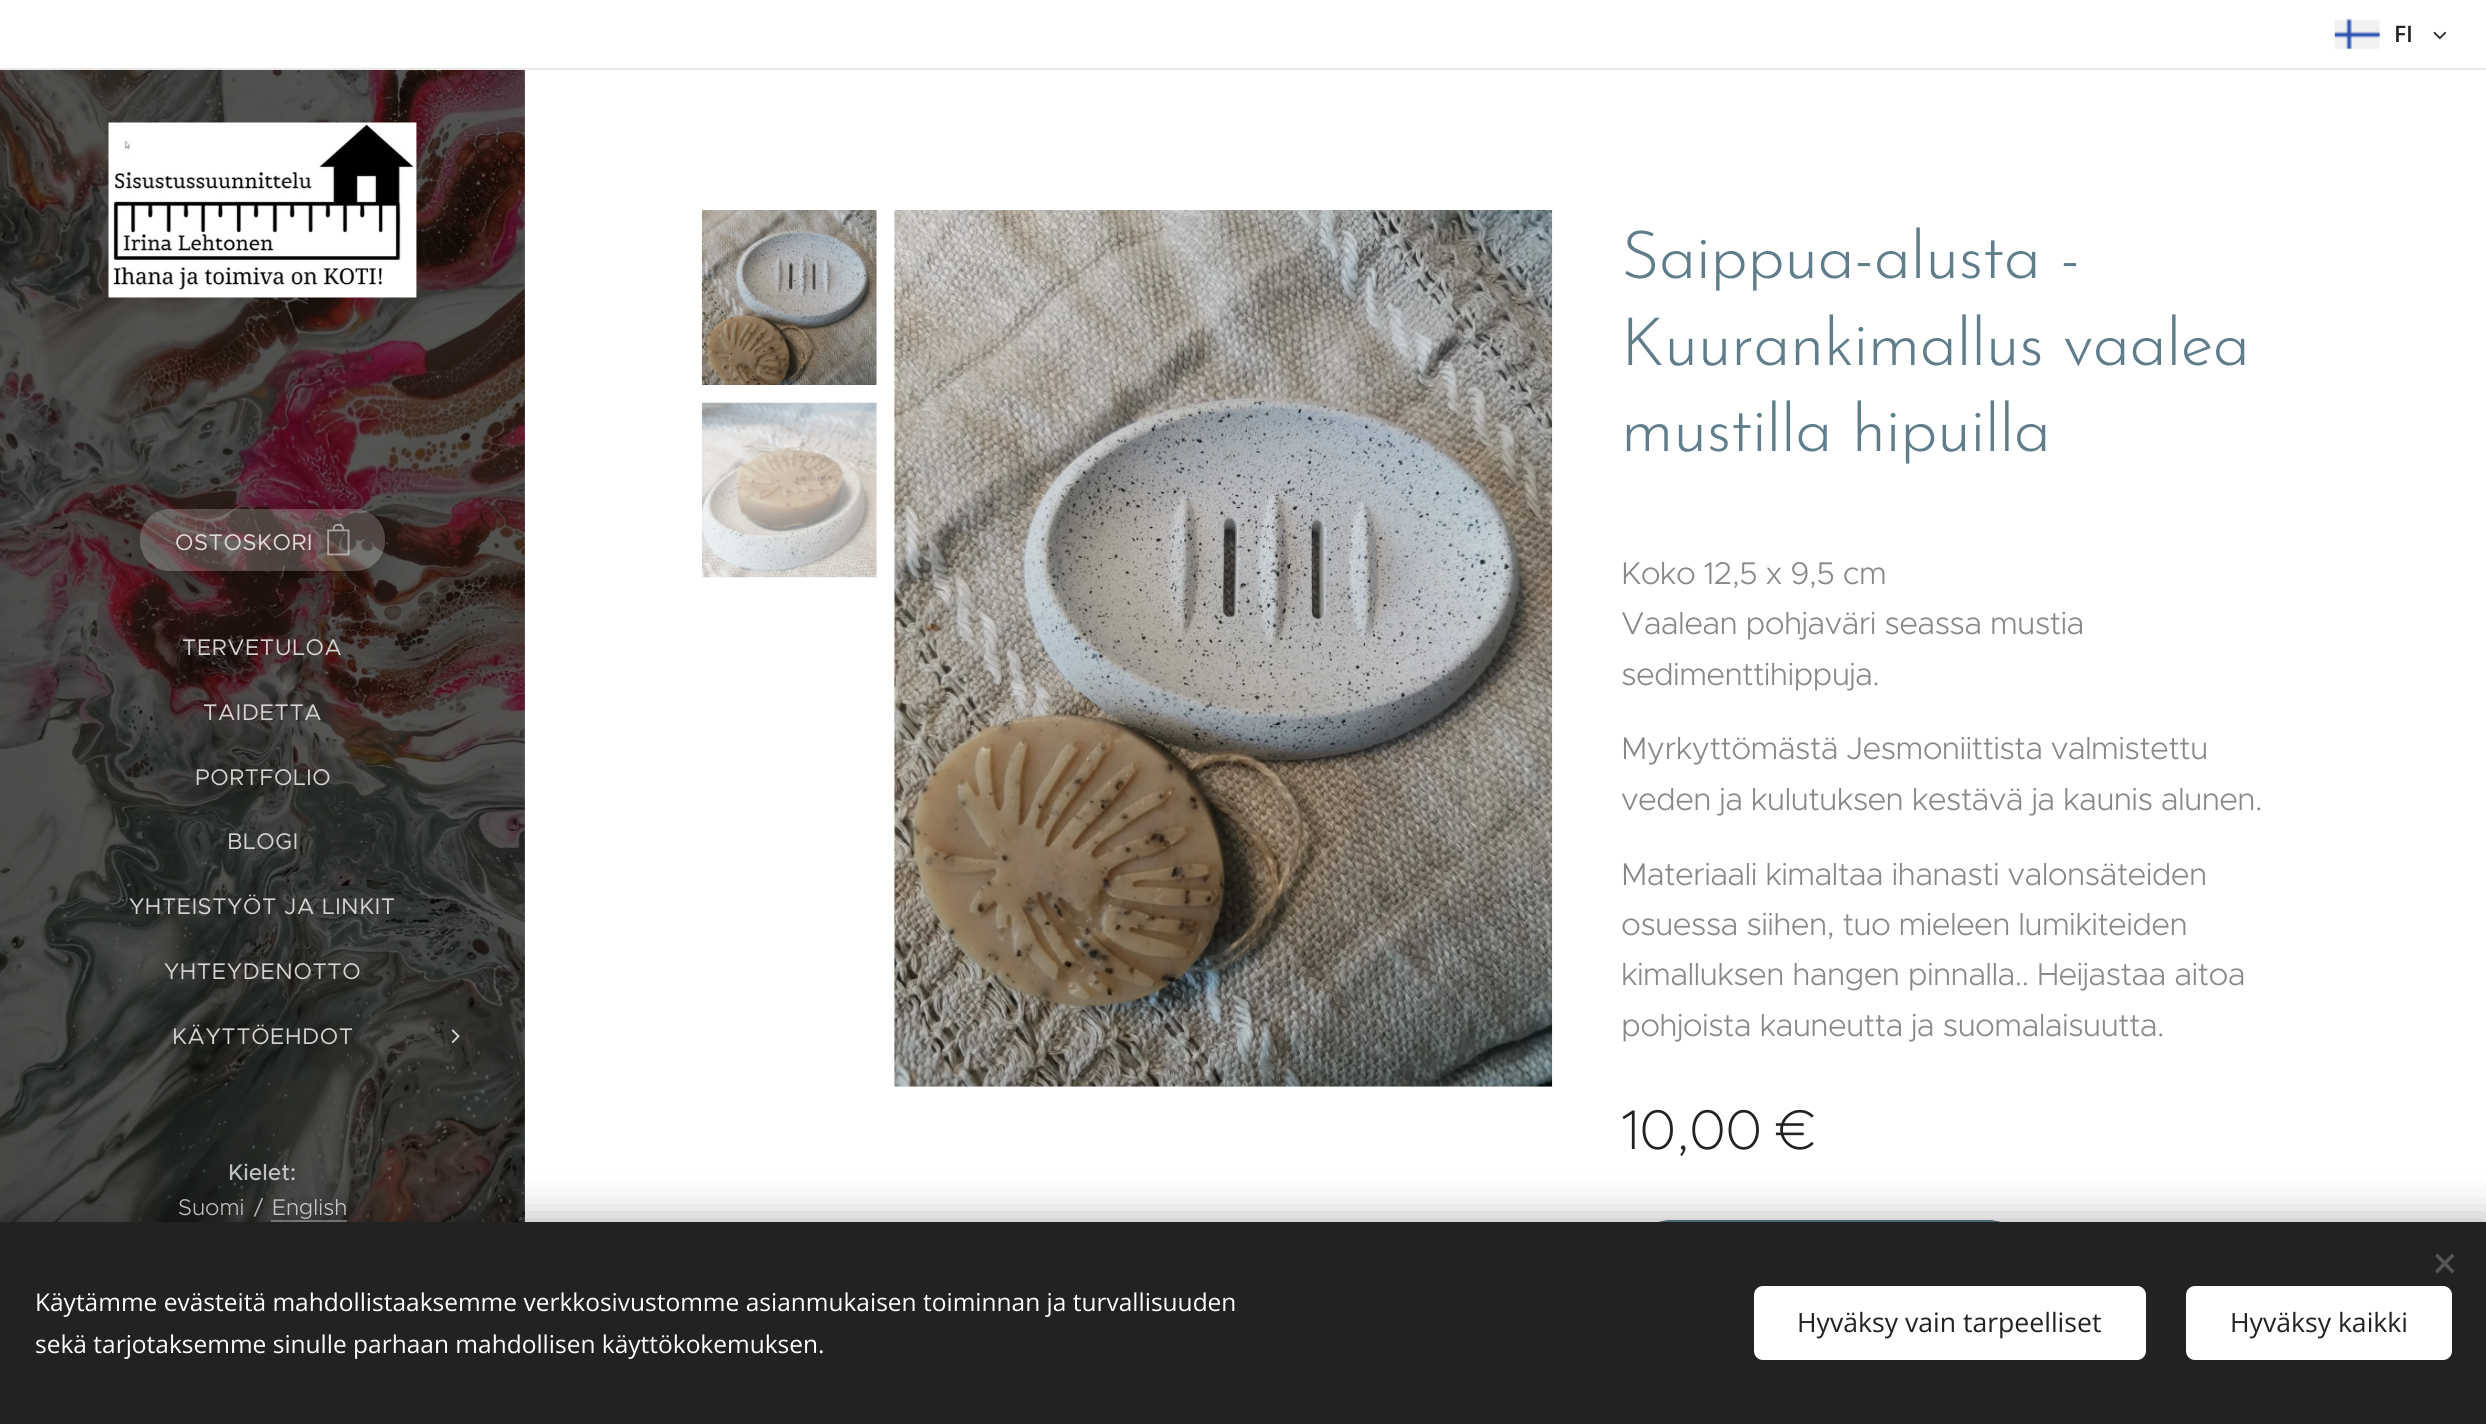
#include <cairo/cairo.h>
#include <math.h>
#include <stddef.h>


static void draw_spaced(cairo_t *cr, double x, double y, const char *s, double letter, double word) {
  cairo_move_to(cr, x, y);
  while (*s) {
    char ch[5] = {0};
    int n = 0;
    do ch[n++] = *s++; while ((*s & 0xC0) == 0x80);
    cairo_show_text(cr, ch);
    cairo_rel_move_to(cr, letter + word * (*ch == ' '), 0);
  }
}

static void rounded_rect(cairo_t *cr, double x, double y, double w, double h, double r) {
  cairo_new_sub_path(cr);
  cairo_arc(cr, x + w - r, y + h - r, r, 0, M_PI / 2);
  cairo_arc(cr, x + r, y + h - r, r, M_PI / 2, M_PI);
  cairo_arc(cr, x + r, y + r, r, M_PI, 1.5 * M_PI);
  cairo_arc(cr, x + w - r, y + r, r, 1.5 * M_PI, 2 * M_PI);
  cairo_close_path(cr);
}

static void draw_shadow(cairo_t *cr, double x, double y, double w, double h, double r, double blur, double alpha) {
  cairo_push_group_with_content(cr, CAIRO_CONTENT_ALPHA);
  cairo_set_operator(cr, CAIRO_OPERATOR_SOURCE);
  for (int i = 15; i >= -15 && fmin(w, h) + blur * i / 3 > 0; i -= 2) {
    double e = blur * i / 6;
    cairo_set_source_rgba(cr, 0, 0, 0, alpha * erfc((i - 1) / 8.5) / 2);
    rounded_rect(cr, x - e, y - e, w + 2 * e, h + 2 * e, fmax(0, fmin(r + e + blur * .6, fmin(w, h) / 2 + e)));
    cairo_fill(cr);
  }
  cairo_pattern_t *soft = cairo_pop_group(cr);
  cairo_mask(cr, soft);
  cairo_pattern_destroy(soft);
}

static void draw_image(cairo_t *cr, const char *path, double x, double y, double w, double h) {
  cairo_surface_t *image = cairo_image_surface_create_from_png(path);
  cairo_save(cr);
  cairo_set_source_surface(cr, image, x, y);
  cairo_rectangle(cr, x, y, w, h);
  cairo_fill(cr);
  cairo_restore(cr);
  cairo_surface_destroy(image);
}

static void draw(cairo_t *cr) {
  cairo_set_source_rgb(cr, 1, 1, 1);
  cairo_paint(cr);
  draw_image(cr, "images/1.png", 2334, 18, 46, 31);
  draw_image(cr, "images/2.png", 2433, 31, 14, 9);
  cairo_set_source_rgb(cr, 232 / 255.0, 232 / 255.0, 232 / 255.0);
  cairo_rectangle(cr, 0, 68, 2486, 2);
  cairo_fill(cr);
  draw_image(cr, "images/3.png", 0, 70, 525, 1152);
  draw_image(cr, "images/4.png", 108, 122, 309, 176);
  cairo_save(cr);
  cairo_set_fill_rule(cr, CAIRO_FILL_RULE_EVEN_ODD);
  cairo_new_path(cr);
  cairo_move_to(cr, 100, 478);
  cairo_line_to(cr, 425, 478);
  cairo_line_to(cr, 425, 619);
  cairo_line_to(cr, 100, 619);
  cairo_close_path(cr);
  cairo_move_to(cr, 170, 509);
  cairo_line_to(cr, 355, 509);
  cairo_curve_to(cr, 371.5, 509, 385, 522.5, 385, 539);
  cairo_line_to(cr, 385, 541);
  cairo_curve_to(cr, 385, 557.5, 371.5, 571, 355, 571);
  cairo_line_to(cr, 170, 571);
  cairo_curve_to(cr, 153.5, 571, 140, 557.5, 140, 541);
  cairo_line_to(cr, 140, 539);
  cairo_curve_to(cr, 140, 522.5, 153.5, 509, 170, 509);
  cairo_close_path(cr);
  cairo_clip(cr);
  cairo_set_source_rgb(cr, 0, 0, 0);
  draw_shadow(cr, 140, 518, 245, 61, 30, 13, 0.2);
  cairo_restore(cr);
  cairo_set_source_rgba(cr, 1, 1, 1, 0.2);
  rounded_rect(cr, 140, 509, 245, 62, 30);
  cairo_fill(cr);
  draw_image(cr, "images/5.png", 327, 523, 23, 33);
  draw_image(cr, "images/6.png", 451, 1029, 9, 14);
  draw_image(cr, "images/7.png", 701, 210, 176, 175);
  draw_image(cr, "images/8.png", 701, 402, 176, 176);
  draw_image(cr, "images/9.png", 894, 210, 659, 877);
  cairo_set_source_rgb(cr, 96 / 255.0, 125 / 255.0, 139 / 255.0);
  rounded_rect(cr, 1622, 1220, 415, 101, 50.5);
  cairo_fill(cr);
  cairo_new_path(cr);
  cairo_move_to(cr, 1673, 1220);
  cairo_curve_to(cr, 1659, 1220, 1646, 1226, 1637, 1234);
  cairo_line_to(cr, 1638, 1236);
  cairo_curve_to(cr, 1647, 1227, 1660, 1222, 1673, 1222);
  cairo_line_to(cr, 1986, 1222);
  cairo_curve_to(cr, 2000, 1222, 2012, 1227, 2021, 1236);
  cairo_line_to(cr, 2022, 1235);
  cairo_curve_to(cr, 2013, 1226, 2000, 1220, 1986, 1220);
  cairo_close_path(cr);
  cairo_fill(cr);
  cairo_set_source_rgba(cr, 1, 1, 1, 0.4);
  cairo_rectangle(cr, 271, 1220, 76, 2);
  cairo_fill(cr);
  cairo_set_source_rgb(cr, 0, 0, 0);
  draw_shadow(cr, 0, 1222, 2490, 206, 0, 22, 0.33);
  cairo_set_source_rgb(cr, 34 / 255.0, 34 / 255.0, 34 / 255.0);
  cairo_rectangle(cr, 0, 1222, 2486, 202);
  cairo_fill(cr);
  cairo_set_source_rgb(cr, 85 / 255.0, 85 / 255.0, 85 / 255.0);
  cairo_new_path(cr);
  cairo_move_to(cr, 2435, 1271);
  cairo_line_to(cr, 2452, 1253.5);
  cairo_line_to(cr, 2454.5, 1256);
  cairo_line_to(cr, 2437.5, 1273.5);
  cairo_close_path(cr);
  cairo_fill(cr);
  cairo_new_path(cr);
  cairo_move_to(cr, 2437.5, 1253.5);
  cairo_line_to(cr, 2454.5, 1271);
  cairo_line_to(cr, 2452, 1273.5);
  cairo_line_to(cr, 2435, 1256);
  cairo_close_path(cr);
  cairo_fill(cr);
  cairo_set_source_rgb(cr, 1, 1, 1);
  rounded_rect(cr, 1754, 1286, 392, 74, 9);
  cairo_fill(cr);
  rounded_rect(cr, 2186, 1286, 266, 74, 9);
  cairo_fill(cr);
  cairo_select_font_face(cr, "Open Sans SemiBold", CAIRO_FONT_SLANT_NORMAL, CAIRO_FONT_WEIGHT_NORMAL);
  cairo_set_font_size(cr, 22.75);
  cairo_set_source_rgb(cr, 34 / 255.0, 34 / 255.0, 34 / 255.0);
  cairo_move_to(cr, 2394, 42);
  cairo_show_text(cr, "FI");
  cairo_select_font_face(cr, "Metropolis", CAIRO_FONT_SLANT_NORMAL, CAIRO_FONT_WEIGHT_NORMAL);
  cairo_set_source_rgb(cr, 224 / 255.0, 219 / 255.0, 219 / 255.0);
  draw_spaced(cr, 175, 550, "OSTOSKORI", 0.6, 0);
  cairo_set_source_rgb(cr, 215 / 255.0, 211 / 255.0, 211 / 255.0);
  draw_spaced(cr, 182, 655, "TERVETULOA", 0.6, 0);
  draw_spaced(cr, 203, 720, "TAIDETTA", 0.6, 0);
  draw_spaced(cr, 195, 785, "PORTFOLIO", 0.6, 0);
  draw_spaced(cr, 227, 849, "BLOGI", 0.6, 0);
  draw_spaced(cr, 129, 914, "YHTEISTYÖT JA LINKIT", 0.6, 0);
  draw_spaced(cr, 164, 979, "YHTEYDENOTTO", 0.6, 0);
  draw_spaced(cr, 172, 1044, "KÄYTTÖEHDOT", 0.6, 0);
  cairo_select_font_face(cr, "Josefin Sans Light", CAIRO_FONT_SLANT_NORMAL, CAIRO_FONT_WEIGHT_NORMAL);
  cairo_set_font_size(cr, 66.5);
  cairo_set_source_rgb(cr, 96 / 255.0, 125 / 255.0, 139 / 255.0);
  draw_spaced(cr, 1621, 278, "Saippua-alusta -", -0.65, 0);
  draw_spaced(cr, 1621, 365, "Kuurankimallus vaalea", -0.65, 0);
  draw_spaced(cr, 1621, 451, "mustilla hipuilla", -0.65, 0);
  cairo_select_font_face(cr, "Metropolis Light", CAIRO_FONT_SLANT_NORMAL, CAIRO_FONT_WEIGHT_NORMAL);
  cairo_set_font_size(cr, 31.5);
  cairo_set_source_rgb(cr, 136 / 255.0, 136 / 255.0, 136 / 255.0);
  draw_spaced(cr, 1621, 584, "Koko 12,5 x 9,5 cm", -0.65, 0);
  draw_spaced(cr, 1621, 634, "Vaalean pohjaväri seassa mustia", -0.65, 0);
  draw_spaced(cr, 1621, 685, "sedimenttihippuja.", -0.65, 0);
  draw_spaced(cr, 1621, 759, "Myrkyttömästä Jesmoniittista valmistettu", -0.65, 0);
  draw_spaced(cr, 1621, 810, "veden ja kulutuksen kestävä ja kaunis alunen.", -0.65, 0);
  draw_spaced(cr, 1621, 885, "Materiaali kimaltaa ihanasti valonsäteiden", -0.65, 0);
  draw_spaced(cr, 1621, 935, "osuessa siihen, tuo mieleen lumikiteiden", -0.65, 0);
  draw_spaced(cr, 1621, 985, "kimalluksen hangen pinnalla.. Heijastaa aitoa", -0.65, 0);
  draw_spaced(cr, 1621, 1036, "pohjoista kauneutta ja suomalaisuutta.", -0.65, 0);
  cairo_select_font_face(cr, "Metropolis ExtraLight", CAIRO_FONT_SLANT_NORMAL, CAIRO_FONT_WEIGHT_NORMAL);
  cairo_set_font_size(cr, 56);
  cairo_set_source_rgb(cr, 34 / 255.0, 34 / 255.0, 34 / 255.0);
  draw_spaced(cr, 1621, 1149, "10,00 €", -0.65, 0);
  cairo_select_font_face(cr, "Metropolis Medium", CAIRO_FONT_SLANT_NORMAL, CAIRO_FONT_WEIGHT_NORMAL);
  cairo_set_font_size(cr, 22.75);
  cairo_set_source_rgb(cr, 191 / 255.0, 192 / 255.0, 191 / 255.0);
  cairo_move_to(cr, 228, 1180);
  cairo_show_text(cr, "Kielet");
  cairo_set_source_rgb(cr, 199 / 255.0, 199 / 255.0, 199 / 255.0);
  cairo_move_to(cr, 290, 1180);
  cairo_show_text(cr, ":");
  cairo_select_font_face(cr, "Metropolis Light", CAIRO_FONT_SLANT_NORMAL, CAIRO_FONT_WEIGHT_NORMAL);
  cairo_set_source_rgb(cr, 191 / 255.0, 192 / 255.0, 191 / 255.0);
  cairo_move_to(cr, 178, 1215);
  cairo_show_text(cr, "Suomi");
  cairo_move_to(cr, 254, 1215);
  cairo_show_text(cr, "/");
  cairo_set_source_rgb(cr, 199 / 255.0, 199 / 255.0, 199 / 255.0);
  cairo_move_to(cr, 272, 1215);
  cairo_show_text(cr, "English");
  cairo_select_font_face(cr, "Open Sans", CAIRO_FONT_SLANT_NORMAL, CAIRO_FONT_WEIGHT_NORMAL);
  cairo_set_font_size(cr, 24.5);
  cairo_set_source_rgb(cr, 1, 1, 1);
  cairo_move_to(cr, 35, 1311);
  cairo_show_text(cr, "Käytämme evästeitä mahdollistaaksemme verkkosivustomme asianmukaisen toiminnan ja turvallisuuden");
  cairo_move_to(cr, 35, 1353);
  cairo_show_text(cr, "sekä tarjotaksemme sinulle parhaan mahdollisen käyttökokemuksen.");
  cairo_set_font_size(cr, 26.6);
  cairo_set_source_rgb(cr, 34 / 255.0, 34 / 255.0, 34 / 255.0);
  cairo_move_to(cr, 1797, 1332);
  cairo_show_text(cr, "Hyväksy vain tarpeelliset");
  cairo_move_to(cr, 2230, 1332);
  cairo_show_text(cr, "Hyväksy kaikki");
}

int main(void) {
  cairo_surface_t *surface = cairo_image_surface_create(CAIRO_FORMAT_RGB24, 2486, 1424);
  cairo_t *cr = cairo_create(surface);
  cairo_font_options_t *options = cairo_font_options_create();
  cairo_font_options_set_hint_metrics(options, CAIRO_HINT_METRICS_OFF);
  cairo_font_options_set_hint_style(options, CAIRO_HINT_STYLE_NONE);
  cairo_set_font_options(cr, options);
  cairo_set_miter_limit(cr, 4);
  draw(cr);
  cairo_surface_write_to_png(surface, "out.png");
  cairo_font_options_destroy(options);
  cairo_destroy(cr);
  cairo_surface_destroy(surface);
  return 0;
}
